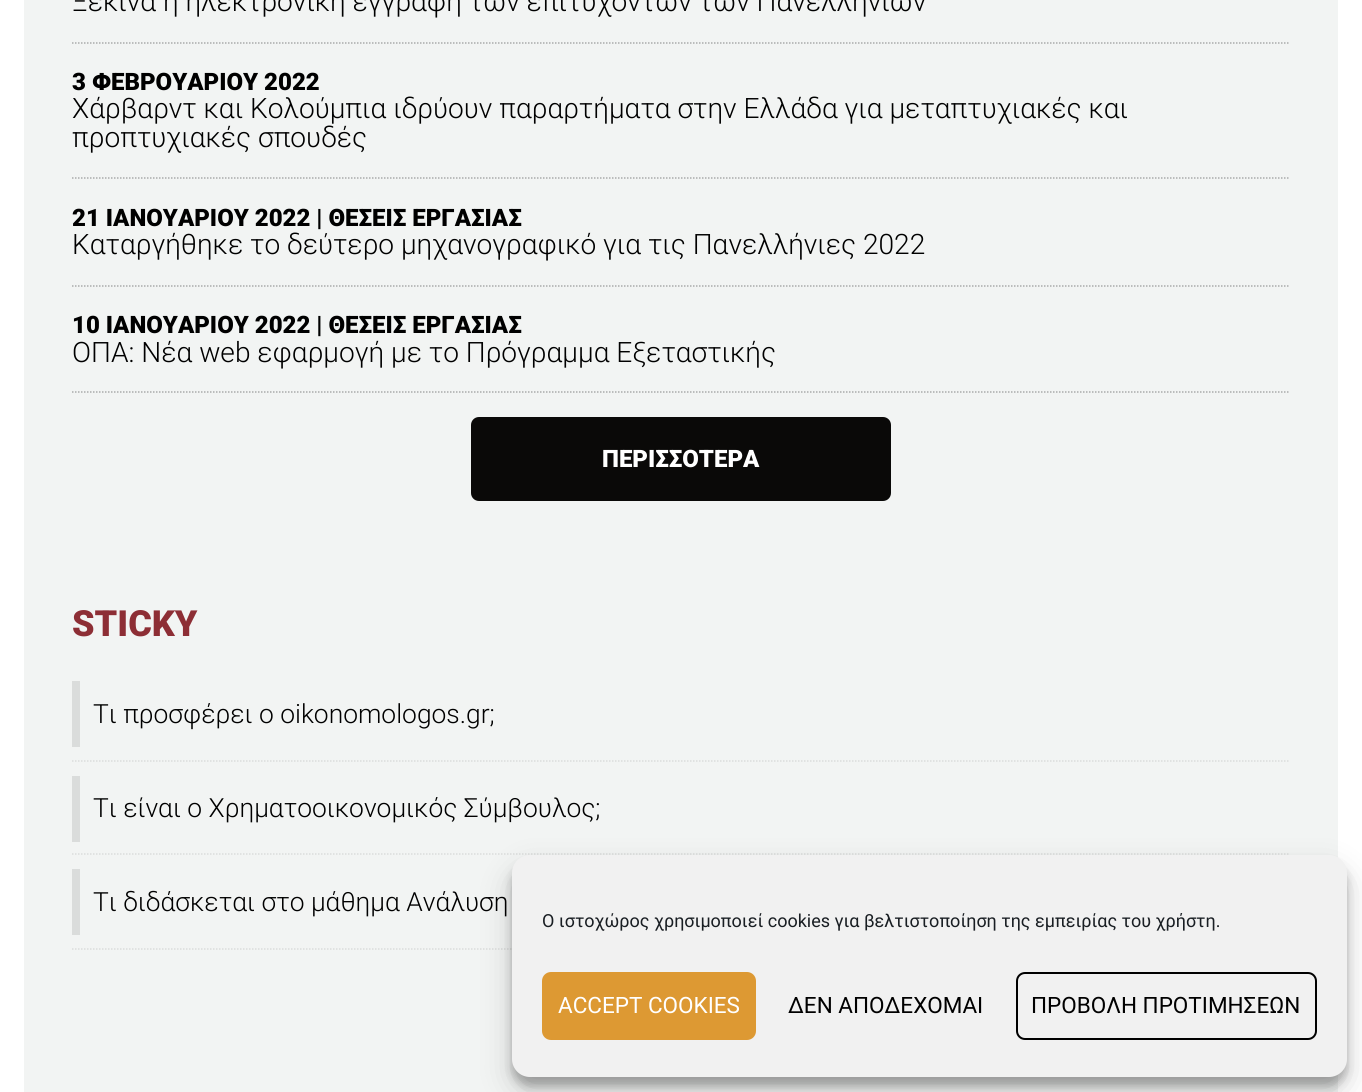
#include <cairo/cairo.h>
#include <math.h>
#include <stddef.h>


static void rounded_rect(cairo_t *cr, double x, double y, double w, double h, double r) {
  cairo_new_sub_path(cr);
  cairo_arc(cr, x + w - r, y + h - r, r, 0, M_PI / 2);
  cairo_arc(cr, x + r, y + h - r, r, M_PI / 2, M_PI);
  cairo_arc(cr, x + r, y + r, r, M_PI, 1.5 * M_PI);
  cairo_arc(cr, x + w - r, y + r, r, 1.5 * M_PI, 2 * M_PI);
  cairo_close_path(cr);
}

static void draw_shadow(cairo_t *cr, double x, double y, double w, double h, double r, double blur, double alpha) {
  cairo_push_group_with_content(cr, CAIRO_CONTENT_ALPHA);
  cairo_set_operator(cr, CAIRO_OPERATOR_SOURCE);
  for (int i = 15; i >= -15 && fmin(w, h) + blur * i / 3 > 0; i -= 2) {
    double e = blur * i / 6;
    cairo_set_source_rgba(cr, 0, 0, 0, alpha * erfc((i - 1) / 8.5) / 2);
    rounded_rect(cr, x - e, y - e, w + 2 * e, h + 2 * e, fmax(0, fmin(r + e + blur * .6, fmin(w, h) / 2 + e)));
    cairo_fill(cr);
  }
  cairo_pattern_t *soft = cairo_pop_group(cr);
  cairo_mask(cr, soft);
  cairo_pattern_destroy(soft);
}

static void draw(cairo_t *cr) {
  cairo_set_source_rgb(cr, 1, 1, 1);
  cairo_paint(cr);
  cairo_set_source_rgb(cr, 242 / 255.0, 244 / 255.0, 243 / 255.0);
  cairo_rectangle(cr, 24, 0, 1314, 1092);
  cairo_fill(cr);
  cairo_new_path(cr);
  cairo_move_to(cr, 72, 43);
  cairo_line_to(cr, 1290, 43);
  cairo_set_source_rgb(cr, 169 / 255.0, 171 / 255.0, 170 / 255.0);
  cairo_set_line_width(cr, 1.5);
  cairo_set_dash(cr, (double[]){1.5, 1.5}, 2, 0);
  cairo_stroke(cr);
  cairo_new_path(cr);
  cairo_move_to(cr, 72, 178);
  cairo_line_to(cr, 1290, 178);
  cairo_stroke(cr);
  cairo_new_path(cr);
  cairo_move_to(cr, 72, 286);
  cairo_line_to(cr, 1290, 286);
  cairo_stroke(cr);
  cairo_new_path(cr);
  cairo_move_to(cr, 72, 392);
  cairo_line_to(cr, 1290, 392);
  cairo_stroke(cr);
  cairo_set_source_rgb(cr, 10 / 255.0, 9 / 255.0, 8 / 255.0);
  rounded_rect(cr, 471, 417, 420, 84, 8);
  cairo_fill(cr);
  cairo_new_path(cr);
  cairo_move_to(cr, 72, 761);
  cairo_line_to(cr, 1290, 761);
  cairo_set_source_rgb(cr, 218 / 255.0, 220 / 255.0, 219 / 255.0);
  cairo_stroke(cr);
  cairo_rectangle(cr, 72, 681, 8, 66);
  cairo_fill(cr);
  cairo_new_path(cr);
  cairo_move_to(cr, 72, 854);
  cairo_line_to(cr, 1290, 854);
  cairo_stroke(cr);
  cairo_rectangle(cr, 72, 776, 8, 66);
  cairo_fill(cr);
  cairo_new_path(cr);
  cairo_move_to(cr, 72, 949);
  cairo_line_to(cr, 1290, 949);
  cairo_stroke(cr);
  cairo_rectangle(cr, 72, 869, 8, 66);
  cairo_fill(cr);
  cairo_set_source_rgb(cr, 0, 0, 0);
  draw_shadow(cr, 512, 864, 835, 222, 18, 4.5, 0.23);
  draw_shadow(cr, 512, 870, 835, 222, 18, 15, 0.19);
  cairo_set_source_rgb(cr, 241 / 255.0, 241 / 255.0, 241 / 255.0);
  rounded_rect(cr, 512, 855, 835, 222, 18);
  cairo_fill(cr);
  cairo_set_source_rgb(cr, 221 / 255.0, 153 / 255.0, 51 / 255.0);
  rounded_rect(cr, 543, 973, 212, 66, 8);
  cairo_fill_preserve(cr);
  cairo_set_line_width(cr, 2);
  cairo_set_dash(cr, NULL, 0, 0);
  cairo_stroke(cr);
  rounded_rect(cr, 1017, 973, 299, 66, 8);
  cairo_set_source_rgb(cr, 0, 0, 0);
  cairo_stroke(cr);
  cairo_select_font_face(cr, "Roboto Light", CAIRO_FONT_SLANT_NORMAL, CAIRO_FONT_WEIGHT_NORMAL);
  cairo_set_font_size(cr, 28.1);
  cairo_move_to(cr, 72, 11);
  cairo_show_text(cr, "Ξεκινά η ηλεκτρονική εγγραφή των επιτυχόντων των Πανελληνίων");
  cairo_select_font_face(cr, "Roboto Black", CAIRO_FONT_SLANT_NORMAL, CAIRO_FONT_WEIGHT_NORMAL);
  cairo_set_font_size(cr, 24);
  cairo_move_to(cr, 72, 90);
  cairo_show_text(cr, "3 ΦΕΒΡΟΥΑΡΙΟΥ 2022");
  cairo_select_font_face(cr, "Roboto Light", CAIRO_FONT_SLANT_NORMAL, CAIRO_FONT_WEIGHT_NORMAL);
  cairo_set_font_size(cr, 28.1);
  cairo_move_to(cr, 72, 118);
  cairo_show_text(cr, "Χάρβαρντ και Κολούμπια ιδρύουν παραρτήματα στην Ελλάδα για μεταπτυχιακές και");
  cairo_move_to(cr, 72, 147);
  cairo_show_text(cr, "προπτυχιακές σπουδές");
  cairo_select_font_face(cr, "Roboto Black", CAIRO_FONT_SLANT_NORMAL, CAIRO_FONT_WEIGHT_NORMAL);
  cairo_set_font_size(cr, 24);
  cairo_move_to(cr, 72, 226);
  cairo_show_text(cr, "21 ΙΑΝΟΥΑΡΙΟΥ 2022 | ΘΕΣΕΙΣ ΕΡΓΑΣΙΑΣ");
  cairo_select_font_face(cr, "Roboto Light", CAIRO_FONT_SLANT_NORMAL, CAIRO_FONT_WEIGHT_NORMAL);
  cairo_set_font_size(cr, 28.1);
  cairo_move_to(cr, 72, 254);
  cairo_show_text(cr, "Καταργήθηκε το δεύτερο μηχανογραφικό για τις Πανελλήνιες 2022");
  cairo_select_font_face(cr, "Roboto Black", CAIRO_FONT_SLANT_NORMAL, CAIRO_FONT_WEIGHT_NORMAL);
  cairo_set_font_size(cr, 24);
  cairo_move_to(cr, 72, 333);
  cairo_show_text(cr, "10 ΙΑΝΟΥΑΡΙΟΥ 2022 | ΘΕΣΕΙΣ ΕΡΓΑΣΙΑΣ");
  cairo_select_font_face(cr, "Roboto Light", CAIRO_FONT_SLANT_NORMAL, CAIRO_FONT_WEIGHT_NORMAL);
  cairo_set_font_size(cr, 28.1);
  cairo_move_to(cr, 72, 362);
  cairo_show_text(cr, "ΟΠΑ: Νέα web εφαρμογή με το Πρόγραμμα Εξεταστικής");
  cairo_select_font_face(cr, "Roboto Black", CAIRO_FONT_SLANT_NORMAL, CAIRO_FONT_WEIGHT_NORMAL);
  cairo_set_font_size(cr, 24);
  cairo_set_source_rgb(cr, 1, 1, 1);
  cairo_move_to(cr, 602, 467);
  cairo_show_text(cr, "ΠΕΡΙΣΣΟΤΕΡΑ");
  cairo_set_font_size(cr, 36);
  cairo_set_source_rgb(cr, 141 / 255.0, 46 / 255.0, 53 / 255.0);
  cairo_move_to(cr, 72, 636);
  cairo_show_text(cr, "STICKY");
  cairo_select_font_face(cr, "Roboto Light", CAIRO_FONT_SLANT_NORMAL, CAIRO_FONT_WEIGHT_NORMAL);
  cairo_set_font_size(cr, 26.4);
  cairo_set_source_rgb(cr, 0, 0, 0);
  cairo_move_to(cr, 93, 723);
  cairo_show_text(cr, "Τι προσφέρει ο oikonomologos.gr;");
  cairo_move_to(cr, 93, 817);
  cairo_show_text(cr, "Τι είναι ο Χρηματοοικονομικός Σύμβουλος;");
  cairo_move_to(cr, 93, 911);
  cairo_show_text(cr, "Τι διδάσκεται στο μάθημα Ανάλυση");
  cairo_select_font_face(cr, "Roboto", CAIRO_FONT_SLANT_NORMAL, CAIRO_FONT_WEIGHT_NORMAL);
  cairo_set_font_size(cr, 18);
  cairo_set_source_rgb(cr, 25 / 255.0, 30 / 255.0, 35 / 255.0);
  cairo_move_to(cr, 542, 927);
  cairo_show_text(cr, "Ο ιστοχώρος χρησιμοποιεί cookies για βελτιστοποίηση της εμπειρίας του χρήστη.");
  cairo_set_font_size(cr, 22.5);
  cairo_set_source_rgb(cr, 1, 1, 1);
  cairo_move_to(cr, 558, 1013);
  cairo_show_text(cr, "ACCEPT COOKIES");
  cairo_set_source_rgb(cr, 0, 0, 0);
  cairo_move_to(cr, 788, 1013);
  cairo_show_text(cr, "ΔΕΝ ΑΠΟΔΕΧΟΜΑΙ");
  cairo_move_to(cr, 1031, 1013);
  cairo_show_text(cr, "ΠΡΟΒΟΛΗ ΠΡΟΤΙΜΗΣΕΩΝ");
}

int main(void) {
  cairo_surface_t *surface = cairo_image_surface_create(CAIRO_FORMAT_RGB24, 1362, 1092);
  cairo_t *cr = cairo_create(surface);
  cairo_font_options_t *options = cairo_font_options_create();
  cairo_font_options_set_hint_metrics(options, CAIRO_HINT_METRICS_OFF);
  cairo_font_options_set_hint_style(options, CAIRO_HINT_STYLE_NONE);
  cairo_set_font_options(cr, options);
  cairo_set_miter_limit(cr, 4);
  draw(cr);
  cairo_surface_write_to_png(surface, "out.png");
  cairo_font_options_destroy(options);
  cairo_destroy(cr);
  cairo_surface_destroy(surface);
  return 0;
}
